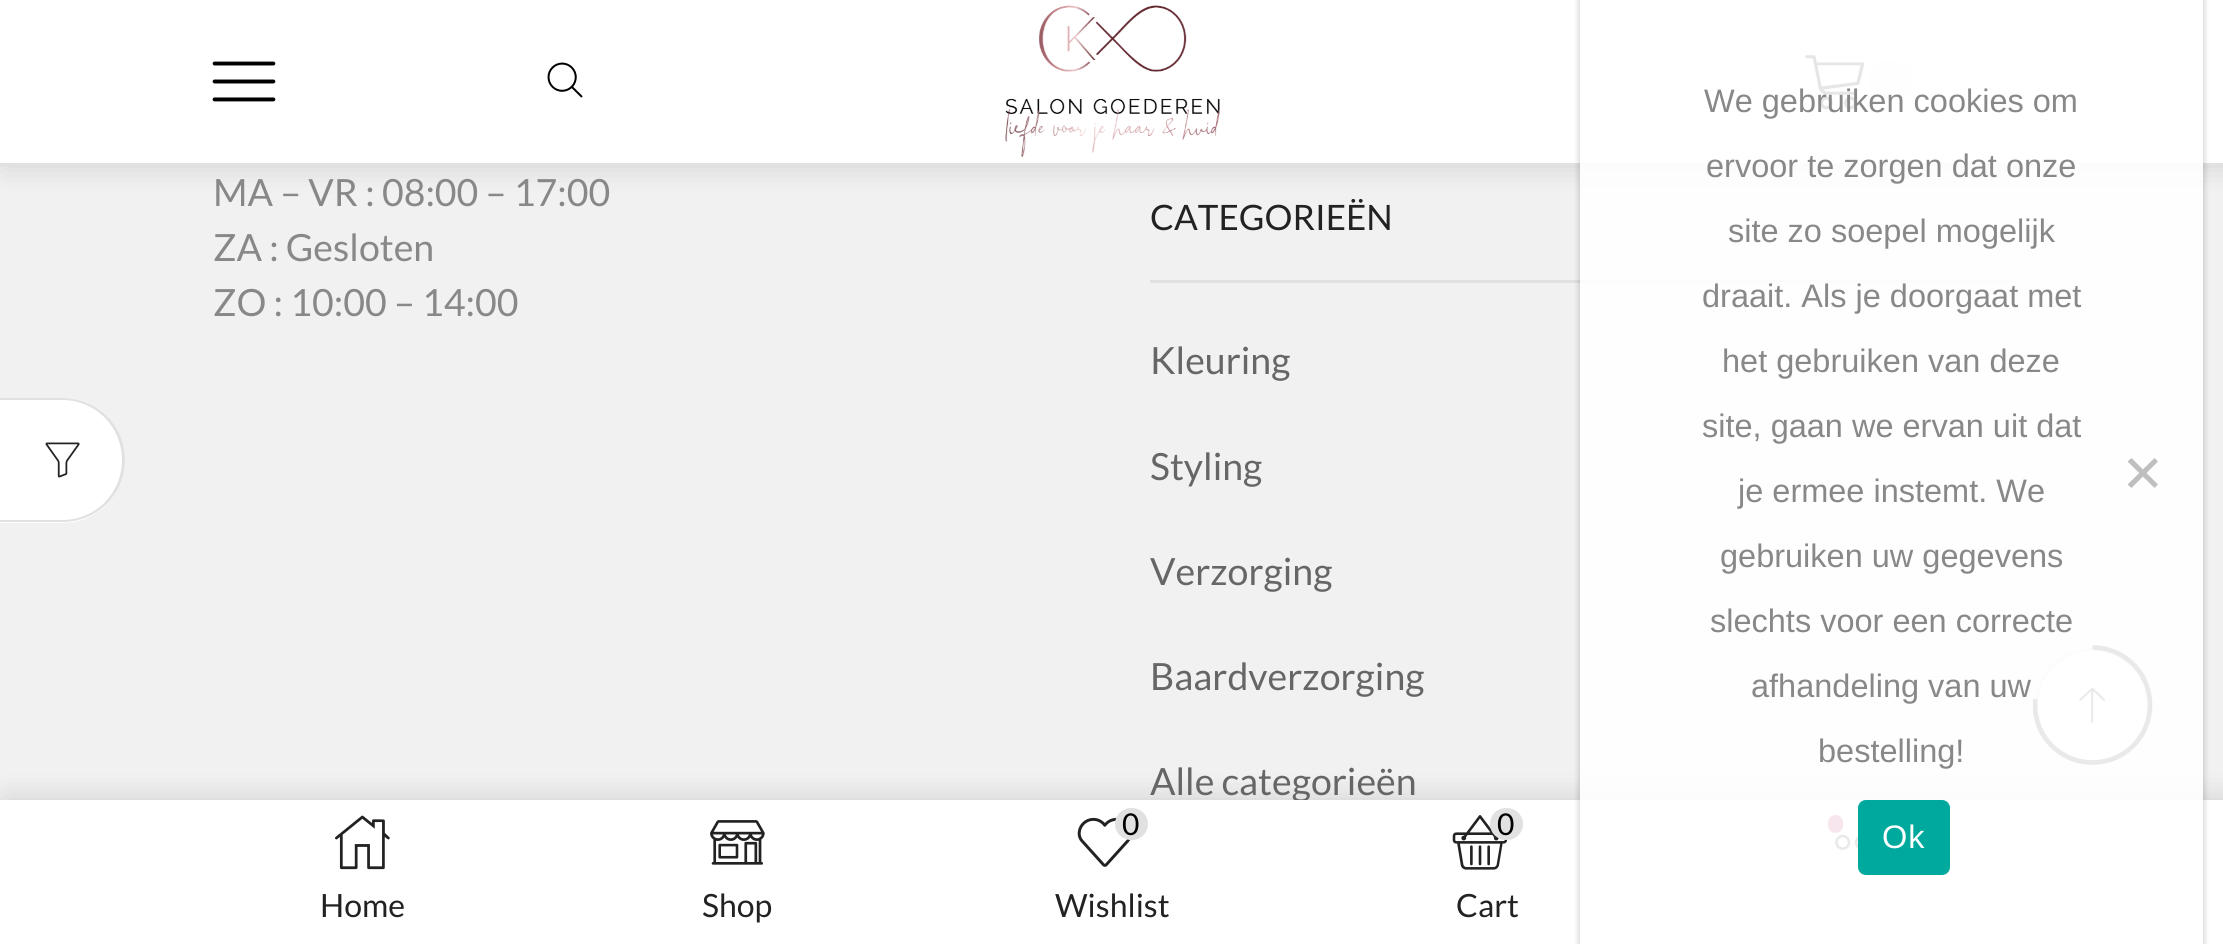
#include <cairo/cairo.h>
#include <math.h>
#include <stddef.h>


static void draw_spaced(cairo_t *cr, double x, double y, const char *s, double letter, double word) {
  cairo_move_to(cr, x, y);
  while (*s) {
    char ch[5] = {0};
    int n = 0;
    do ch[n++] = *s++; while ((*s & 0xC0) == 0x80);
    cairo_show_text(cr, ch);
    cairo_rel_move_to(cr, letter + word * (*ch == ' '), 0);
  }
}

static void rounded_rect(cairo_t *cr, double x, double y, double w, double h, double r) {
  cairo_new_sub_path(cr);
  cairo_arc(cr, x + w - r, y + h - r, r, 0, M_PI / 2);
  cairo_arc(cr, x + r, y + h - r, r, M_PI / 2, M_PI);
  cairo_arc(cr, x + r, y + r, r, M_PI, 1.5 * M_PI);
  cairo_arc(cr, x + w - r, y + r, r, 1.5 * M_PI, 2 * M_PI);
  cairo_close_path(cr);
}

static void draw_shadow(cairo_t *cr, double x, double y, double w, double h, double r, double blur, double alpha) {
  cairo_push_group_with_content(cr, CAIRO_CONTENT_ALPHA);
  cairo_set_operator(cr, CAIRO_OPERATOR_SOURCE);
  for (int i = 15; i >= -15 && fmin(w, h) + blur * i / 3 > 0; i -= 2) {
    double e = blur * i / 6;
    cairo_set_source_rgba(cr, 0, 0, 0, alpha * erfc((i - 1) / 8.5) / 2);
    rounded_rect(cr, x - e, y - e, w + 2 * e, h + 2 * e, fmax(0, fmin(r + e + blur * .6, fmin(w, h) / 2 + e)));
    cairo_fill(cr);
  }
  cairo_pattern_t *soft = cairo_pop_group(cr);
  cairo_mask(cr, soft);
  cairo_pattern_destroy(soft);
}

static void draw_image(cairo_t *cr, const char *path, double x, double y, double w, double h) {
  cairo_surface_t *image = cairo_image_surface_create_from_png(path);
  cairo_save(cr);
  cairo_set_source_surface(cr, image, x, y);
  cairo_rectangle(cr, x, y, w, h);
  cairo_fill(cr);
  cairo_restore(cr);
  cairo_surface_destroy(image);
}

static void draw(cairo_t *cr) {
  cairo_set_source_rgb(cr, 241 / 255.0, 241 / 255.0, 241 / 255.0);
  cairo_paint(cr);
  cairo_set_source_rgb(cr, 1, 1, 1);
  cairo_new_path(cr);
  cairo_move_to(cr, 0, 398);
  cairo_line_to(cr, 62.5, 398);
  cairo_curve_to(cr, 97, 398, 125, 426, 125, 460.5);
  cairo_curve_to(cr, 125, 495, 97, 523, 62.5, 523);
  cairo_line_to(cr, 0, 523);
  cairo_close_path(cr);
  cairo_fill(cr);
  cairo_set_source_rgb(cr, 225 / 255.0, 225 / 255.0, 225 / 255.0);
  cairo_set_fill_rule(cr, CAIRO_FILL_RULE_EVEN_ODD);
  cairo_new_path(cr);
  cairo_move_to(cr, 0, 398);
  cairo_line_to(cr, 62, 398);
  cairo_curve_to(cr, 97, 398, 125, 425, 125, 460);
  cairo_curve_to(cr, 125, 495, 97, 522, 62, 522);
  cairo_line_to(cr, 0, 522);
  cairo_close_path(cr);
  cairo_move_to(cr, 0, 400);
  cairo_line_to(cr, 62, 400);
  cairo_curve_to(cr, 96, 400, 122, 427, 122, 460);
  cairo_curve_to(cr, 122, 493, 96, 520, 62, 520);
  cairo_line_to(cr, 0, 520);
  cairo_close_path(cr);
  cairo_fill(cr);
  draw_image(cr, "images/1.png", 45, 442, 35, 36);
  cairo_set_source_rgb(cr, 0, 0, 0);
  draw_shadow(cr, 5, 0, 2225, 165, 0, 15, 0.15);
  cairo_set_source_rgb(cr, 1, 1, 1);
  cairo_rectangle(cr, 0, 0, 2223, 163);
  cairo_fill(cr);
  cairo_set_source_rgb(cr, 225 / 255.0, 225 / 255.0, 225 / 255.0);
  cairo_rectangle(cr, 0, 163, 2223, 3);
  cairo_fill(cr);
  draw_image(cr, "images/2.png", 212, 61, 64, 41);
  draw_image(cr, "images/3.png", 547, 62, 36, 36);
  draw_image(cr, "images/4.png", 1005, 5, 215, 152);
  draw_image(cr, "images/5.png", 1805, 55, 60, 55);
  cairo_set_source_rgb(cr, 243 / 255.0, 243 / 255.0, 243 / 255.0);
  rounded_rect(cr, 1868, 60, 45, 43, 21.5);
  cairo_fill(cr);
  cairo_set_source_rgb(cr, 225 / 255.0, 225 / 255.0, 225 / 255.0);
  cairo_rectangle(cr, 1150, 280, 863, 3);
  cairo_fill(cr);
  cairo_set_source_rgb(cr, 0, 0, 0);
  draw_shadow(cr, 5, 800, 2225, 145, 0, 15, 0.15);
  cairo_set_source_rgb(cr, 1, 1, 1);
  cairo_arc(cr, 2092.5, 705.5, 56, 0, 2 * M_PI);
  cairo_fill_preserve(cr);
  cairo_set_source_rgb(cr, 225 / 255.0, 225 / 255.0, 225 / 255.0);
  cairo_set_line_width(cr, 3);
  cairo_stroke(cr);
  cairo_save(cr);
  cairo_set_fill_rule(cr, CAIRO_FILL_RULE_WINDING);
  cairo_rectangle(cr, 2033, 645, 120, 120);
  cairo_clip(cr);
  cairo_new_path(cr);
  cairo_move_to(cr, 2092.5, 647.5);
  cairo_curve_to(cr, 2124.5, 647.5, 2150, 673, 2150, 705);
  cairo_curve_to(cr, 2150, 737, 2124.5, 762.5, 2092.5, 762.5);
  cairo_curve_to(cr, 2060.5, 762.5, 2035, 737, 2035, 705);
  cairo_line_to(cr, 2035, 699);
  cairo_set_source_rgb(cr, 34 / 255.0, 34 / 255.0, 34 / 255.0);
  cairo_set_line_width(cr, 4.7);
  cairo_stroke(cr);
  cairo_restore(cr);
  draw_image(cr, "images/6.png", 2079, 687, 27, 36);
  cairo_select_font_face(cr, "Lato", CAIRO_FONT_SLANT_NORMAL, CAIRO_FONT_WEIGHT_NORMAL);
  cairo_set_font_size(cr, 37.5);
  cairo_set_source_rgb(cr, 136 / 255.0, 136 / 255.0, 136 / 255.0);
  cairo_move_to(cr, 213, 206);
  cairo_show_text(cr, "MA – VR : 08:00 – 17:00");
  cairo_move_to(cr, 213, 261);
  cairo_show_text(cr, "ZA : Gesloten");
  cairo_move_to(cr, 213, 316);
  cairo_show_text(cr, "ZO : 10:00 – 14:00");
  cairo_set_font_size(cr, 35);
  cairo_set_source_rgb(cr, 34 / 255.0, 34 / 255.0, 34 / 255.0);
  cairo_move_to(cr, 1150, 230);
  cairo_show_text(cr, "CATEGORIEËN");
  cairo_set_font_size(cr, 37.5);
  cairo_set_source_rgb(cr, 102 / 255.0, 102 / 255.0, 102 / 255.0);
  cairo_move_to(cr, 1150, 374);
  cairo_show_text(cr, "Kleuring");
  cairo_move_to(cr, 1150, 480);
  cairo_show_text(cr, "Styling");
  cairo_move_to(cr, 1150, 585);
  cairo_show_text(cr, "Verzorging");
  cairo_move_to(cr, 1150, 690);
  cairo_show_text(cr, "Baardverzorging");
  cairo_move_to(cr, 1150, 795);
  cairo_show_text(cr, "Alle categorieën");
  cairo_set_source_rgb(cr, 1, 1, 1);
  cairo_rectangle(cr, 0, 800, 2223, 144);
  cairo_fill(cr);
  draw_image(cr, "images/7.png", 1077, 817, 54, 50);
  cairo_set_source_rgb(cr, 225 / 255.0, 225 / 255.0, 225 / 255.0);
  rounded_rect(cr, 1115, 808, 33, 32, 16);
  cairo_fill(cr);
  cairo_set_font_size(cr, 30);
  cairo_set_source_rgb(cr, 0, 0, 0);
  cairo_move_to(cr, 1122, 835);
  cairo_show_text(cr, "0");
  cairo_set_font_size(cr, 32);
  cairo_set_source_rgb(cr, 34 / 255.0, 34 / 255.0, 34 / 255.0);
  cairo_move_to(cr, 1055, 917);
  cairo_show_text(cr, "Wishlist");
  draw_image(cr, "images/8.png", 1452, 815, 56, 55);
  cairo_set_source_rgb(cr, 225 / 255.0, 225 / 255.0, 225 / 255.0);
  rounded_rect(cr, 1490, 808, 33, 32, 16);
  cairo_fill(cr);
  cairo_set_font_size(cr, 30);
  cairo_set_source_rgb(cr, 0, 0, 0);
  cairo_move_to(cr, 1497, 835);
  cairo_show_text(cr, "0");
  cairo_set_font_size(cr, 32);
  cairo_set_source_rgb(cr, 34 / 255.0, 34 / 255.0, 34 / 255.0);
  cairo_move_to(cr, 1456, 917);
  cairo_show_text(cr, "Cart");
  cairo_set_source_rgb(cr, 173 / 255.0, 5 / 255.0, 78 / 255.0);
  rounded_rect(cr, 1828, 815, 15, 18, 7.5);
  cairo_fill(cr);
  draw_image(cr, "images/9.png", 1835, 834, 23, 16);
  draw_image(cr, "images/10.png", 335, 815, 55, 55);
  cairo_set_source_rgb(cr, 34 / 255.0, 34 / 255.0, 34 / 255.0);
  cairo_move_to(cr, 320, 917);
  cairo_show_text(cr, "Home");
  draw_image(cr, "images/11.png", 710, 820, 55, 45);
  cairo_move_to(cr, 702, 917);
  cairo_show_text(cr, "Shop");
  cairo_save(cr);
  cairo_new_path(cr);
  cairo_move_to(cr, 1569, 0);
  cairo_line_to(cr, 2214, 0);
  cairo_line_to(cr, 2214, 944);
  cairo_line_to(cr, 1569, 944);
  cairo_close_path(cr);
  cairo_move_to(cr, 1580, -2);
  cairo_line_to(cr, 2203, -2);
  cairo_line_to(cr, 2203, 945);
  cairo_line_to(cr, 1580, 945);
  cairo_close_path(cr);
  cairo_clip(cr);
  cairo_set_source_rgb(cr, 0, 0, 0);
  draw_shadow(cr, 1578, -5, 627, 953, 0, 2.5, 0.15);
  cairo_restore(cr);
  cairo_set_source_rgba(cr, 1, 1, 1, 0.9);
  cairo_rectangle(cr, 1580, 0, 623, 944);
  cairo_fill(cr);
  cairo_select_font_face(cr, "Liberation Sans", CAIRO_FONT_SLANT_NORMAL, CAIRO_FONT_WEIGHT_NORMAL);
  cairo_set_font_size(cr, 32.5);
  cairo_set_source_rgb(cr, 136 / 255.0, 136 / 255.0, 136 / 255.0);
  cairo_move_to(cr, 1704, 112);
  cairo_show_text(cr, "We gebruiken cookies om");
  cairo_move_to(cr, 1706, 177);
  cairo_show_text(cr, "ervoor te zorgen dat onze");
  cairo_move_to(cr, 1728, 242);
  cairo_show_text(cr, "site zo soepel mogelijk");
  cairo_move_to(cr, 1702, 307);
  cairo_show_text(cr, "draait. Als je doorgaat met");
  cairo_move_to(cr, 1722, 372);
  cairo_show_text(cr, "het gebruiken van deze");
  cairo_move_to(cr, 1702, 437);
  cairo_show_text(cr, "site, gaan we ervan uit dat");
  cairo_move_to(cr, 1738, 502);
  cairo_show_text(cr, "je ermee instemt. We");
  cairo_move_to(cr, 1720, 567);
  cairo_show_text(cr, "gebruiken uw gegevens");
  cairo_move_to(cr, 1710, 632);
  cairo_show_text(cr, "slechts voor een correcte");
  cairo_move_to(cr, 1751, 697);
  cairo_show_text(cr, "afhandeling van uw");
  cairo_move_to(cr, 1818, 762);
  cairo_show_text(cr, "bestelling!");
  cairo_set_source_rgb(cr, 191 / 255.0, 191 / 255.0, 191 / 255.0);
  cairo_set_fill_rule(cr, CAIRO_FILL_RULE_WINDING);
  cairo_new_path(cr);
  cairo_move_to(cr, 2154.5, 458);
  cairo_line_to(cr, 2158, 461.5);
  cairo_line_to(cr, 2131.5, 488);
  cairo_line_to(cr, 2127.5, 484.5);
  cairo_close_path(cr);
  cairo_fill(cr);
  cairo_new_path(cr);
  cairo_move_to(cr, 2127.5, 461.5);
  cairo_line_to(cr, 2131.5, 458);
  cairo_line_to(cr, 2158, 484.5);
  cairo_line_to(cr, 2154.5, 488);
  cairo_close_path(cr);
  cairo_fill(cr);
  cairo_set_source_rgb(cr, 0, 169 / 255.0, 157 / 255.0);
  rounded_rect(cr, 1858, 800, 92, 75, 8);
  cairo_fill(cr);
  cairo_set_source_rgb(cr, 1, 1, 1);
  draw_spaced(cr, 1882, 848, "Ok", 1, 0);
}

int main(void) {
  cairo_surface_t *surface = cairo_image_surface_create(CAIRO_FORMAT_RGB24, 2223, 944);
  cairo_t *cr = cairo_create(surface);
  cairo_font_options_t *options = cairo_font_options_create();
  cairo_font_options_set_hint_metrics(options, CAIRO_HINT_METRICS_OFF);
  cairo_font_options_set_hint_style(options, CAIRO_HINT_STYLE_NONE);
  cairo_set_font_options(cr, options);
  cairo_set_miter_limit(cr, 4);
  draw(cr);
  cairo_surface_write_to_png(surface, "out.png");
  cairo_font_options_destroy(options);
  cairo_destroy(cr);
  cairo_surface_destroy(surface);
  return 0;
}
